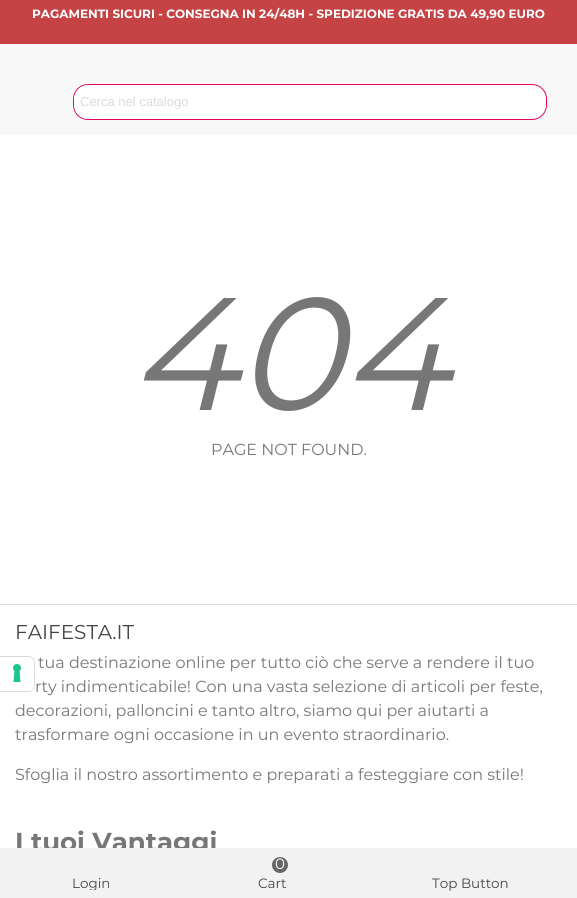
#include <cairo/cairo.h>
#include <math.h>
#include <stddef.h>


static void rounded_rect(cairo_t *cr, double x, double y, double w, double h, double r) {
  cairo_new_sub_path(cr);
  cairo_arc(cr, x + w - r, y + h - r, r, 0, M_PI / 2);
  cairo_arc(cr, x + r, y + h - r, r, M_PI / 2, M_PI);
  cairo_arc(cr, x + r, y + r, r, M_PI, 1.5 * M_PI);
  cairo_arc(cr, x + w - r, y + r, r, 1.5 * M_PI, 2 * M_PI);
  cairo_close_path(cr);
}

static void draw_image(cairo_t *cr, const char *path, double x, double y, double w, double h) {
  cairo_surface_t *image = cairo_image_surface_create_from_png(path);
  cairo_save(cr);
  cairo_set_source_surface(cr, image, x, y);
  cairo_rectangle(cr, x, y, w, h);
  cairo_fill(cr);
  cairo_restore(cr);
  cairo_surface_destroy(image);
}

static void draw(cairo_t *cr) {
  cairo_set_source_rgb(cr, 1, 1, 1);
  cairo_paint(cr);
  cairo_set_source_rgb(cr, 248 / 255.0, 248 / 255.0, 248 / 255.0);
  cairo_rectangle(cr, 0, 44, 577, 91);
  cairo_fill(cr);
  cairo_set_source_rgb(cr, 197 / 255.0, 66 / 255.0, 69 / 255.0);
  cairo_rectangle(cr, 0, 0, 577, 44);
  cairo_fill(cr);
  cairo_set_source_rgb(cr, 1, 1, 1);
  rounded_rect(cr, 73.5, 84.5, 473, 35, 14.5);
  cairo_fill_preserve(cr);
  cairo_set_source_rgb(cr, 227 / 255.0, 6 / 255.0, 93 / 255.0);
  cairo_set_line_width(cr, 1);
  cairo_stroke(cr);
  cairo_set_source_rgb(cr, 1, 1, 1);
  cairo_new_path(cr);
  cairo_move_to(cr, 89, 85);
  cairo_line_to(cr, 513, 85);
  cairo_line_to(cr, 513, 119);
  cairo_line_to(cr, 89, 119);
  cairo_curve_to(cr, 80.5, 119, 74, 112.5, 74, 104);
  cairo_line_to(cr, 74, 100);
  cairo_curve_to(cr, 74, 91.5, 80.5, 85, 89, 85);
  cairo_close_path(cr);
  cairo_fill(cr);
  cairo_set_source_rgb(cr, 217 / 255.0, 217 / 255.0, 217 / 255.0);
  cairo_rectangle(cr, 0, 604, 577, 1);
  cairo_fill(cr);
  cairo_new_path(cr);
  cairo_move_to(cr, -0.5, 656.5);
  cairo_line_to(cr, 28, 656.5);
  cairo_curve_to(cr, 31.5, 656.5, 34.5, 659.5, 34.5, 663);
  cairo_line_to(cr, 34.5, 685);
  cairo_curve_to(cr, 34.5, 688.5, 31.5, 691.5, 28, 691.5);
  cairo_line_to(cr, -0.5, 691.5);
  cairo_close_path(cr);
  cairo_set_source_rgba(cr, 0, 0, 0, 0.15);
  cairo_stroke(cr);
  cairo_set_source_rgb(cr, 1, 1, 1);
  cairo_new_path(cr);
  cairo_move_to(cr, 0, 657);
  cairo_line_to(cr, 28, 657);
  cairo_curve_to(cr, 31.5, 657, 34, 659.5, 34, 663);
  cairo_line_to(cr, 34, 685);
  cairo_curve_to(cr, 34, 688.5, 31.5, 691, 28, 691);
  cairo_line_to(cr, 0, 691);
  cairo_close_path(cr);
  cairo_fill(cr);
  draw_image(cr, "images/1.png", 13, 664, 8, 18);
  cairo_select_font_face(cr, "Montserrat", CAIRO_FONT_SLANT_NORMAL, CAIRO_FONT_WEIGHT_BOLD);
  cairo_set_font_size(cr, 12);
  cairo_move_to(cr, 32, 18);
  cairo_show_text(cr, "PAGAMENTI SICURI - CONSEGNA IN 24/48H - SPEDIZIONE GRATIS DA 49,90 EURO");
  cairo_select_font_face(cr, "Liberation Sans", CAIRO_FONT_SLANT_NORMAL, CAIRO_FONT_WEIGHT_NORMAL);
  cairo_set_font_size(cr, 13);
  cairo_set_source_rgb(cr, 218 / 255.0, 218 / 255.0, 218 / 255.0);
  cairo_move_to(cr, 80, 106);
  cairo_show_text(cr, "Cerca nel catalogo");
  cairo_select_font_face(cr, "Montserrat", CAIRO_FONT_SLANT_ITALIC, CAIRO_FONT_WEIGHT_NORMAL);
  cairo_set_font_size(cr, 160);
  cairo_set_source_rgb(cr, 119 / 255.0, 119 / 255.0, 119 / 255.0);
  cairo_move_to(cr, 130, 410);
  cairo_show_text(cr, "404");
  cairo_select_font_face(cr, "Montserrat", CAIRO_FONT_SLANT_NORMAL, CAIRO_FONT_WEIGHT_NORMAL);
  cairo_set_font_size(cr, 16);
  cairo_move_to(cr, 211, 455);
  cairo_show_text(cr, "PAGE NOT FOUND.");
  cairo_set_font_size(cr, 20);
  cairo_set_source_rgb(cr, 68 / 255.0, 68 / 255.0, 68 / 255.0);
  cairo_move_to(cr, 15, 639);
  cairo_show_text(cr, "FAIFESTA.IT");
  cairo_set_font_size(cr, 16);
  cairo_set_source_rgb(cr, 119 / 255.0, 119 / 255.0, 119 / 255.0);
  cairo_move_to(cr, 38, 668);
  cairo_show_text(cr, "tua destinazione online per tutto ciò che serve a rendere il tuo");
  cairo_move_to(cr, 35, 692);
  cairo_show_text(cr, "rty indimenticabile! Con una vasta selezione di articoli per feste,");
  cairo_move_to(cr, 15, 716);
  cairo_show_text(cr, "decorazioni, palloncini e tanto altro, siamo qui per aiutarti a");
  cairo_move_to(cr, 15, 740);
  cairo_show_text(cr, "trasformare ogni occasione in un evento straordinario.");
  cairo_move_to(cr, 15, 780);
  cairo_show_text(cr, "Sfoglia il nostro assortimento e preparati a festeggiare con stile!");
  cairo_select_font_face(cr, "Montserrat", CAIRO_FONT_SLANT_NORMAL, CAIRO_FONT_WEIGHT_BOLD);
  cairo_set_font_size(cr, 26);
  cairo_move_to(cr, 15, 851);
  cairo_show_text(cr, "I tuoi Vantaggi");
  cairo_set_source_rgb(cr, 242 / 255.0, 242 / 255.0, 242 / 255.0);
  cairo_rectangle(cr, 0, 848, 577, 50);
  cairo_fill(cr);
  cairo_save(cr);
  cairo_rectangle(cr, 0, 876, 181, 14);
  cairo_clip(cr);
  cairo_select_font_face(cr, "Montserrat", CAIRO_FONT_SLANT_NORMAL, CAIRO_FONT_WEIGHT_NORMAL);
  cairo_set_font_size(cr, 13.5);
  cairo_set_source_rgb(cr, 68 / 255.0, 68 / 255.0, 68 / 255.0);
  cairo_move_to(cr, 72, 888);
  cairo_show_text(cr, "Login");
  cairo_restore(cr);
  cairo_set_source_rgb(cr, 102 / 255.0, 102 / 255.0, 102 / 255.0);
  cairo_new_path(cr);
  cairo_arc(cr, 280, 865, 8, 0, 2 * M_PI);
  cairo_fill(cr);
  cairo_select_font_face(cr, "Montserrat", CAIRO_FONT_SLANT_NORMAL, CAIRO_FONT_WEIGHT_NORMAL);
  cairo_set_font_size(cr, 15);
  cairo_set_source_rgb(cr, 1, 1, 1);
  cairo_move_to(cr, 275, 869);
  cairo_show_text(cr, "0");
  cairo_set_font_size(cr, 13.5);
  cairo_set_source_rgb(cr, 68 / 255.0, 68 / 255.0, 68 / 255.0);
  cairo_move_to(cr, 258, 888);
  cairo_show_text(cr, "Cart");
  cairo_move_to(cr, 432, 888);
  cairo_show_text(cr, "Top Button");
}

int main(void) {
  cairo_surface_t *surface = cairo_image_surface_create(CAIRO_FORMAT_RGB24, 577, 898);
  cairo_t *cr = cairo_create(surface);
  cairo_font_options_t *options = cairo_font_options_create();
  cairo_font_options_set_hint_metrics(options, CAIRO_HINT_METRICS_OFF);
  cairo_font_options_set_hint_style(options, CAIRO_HINT_STYLE_NONE);
  cairo_set_font_options(cr, options);
  cairo_set_miter_limit(cr, 4);
  draw(cr);
  cairo_surface_write_to_png(surface, "out.png");
  cairo_font_options_destroy(options);
  cairo_destroy(cr);
  cairo_surface_destroy(surface);
  return 0;
}
